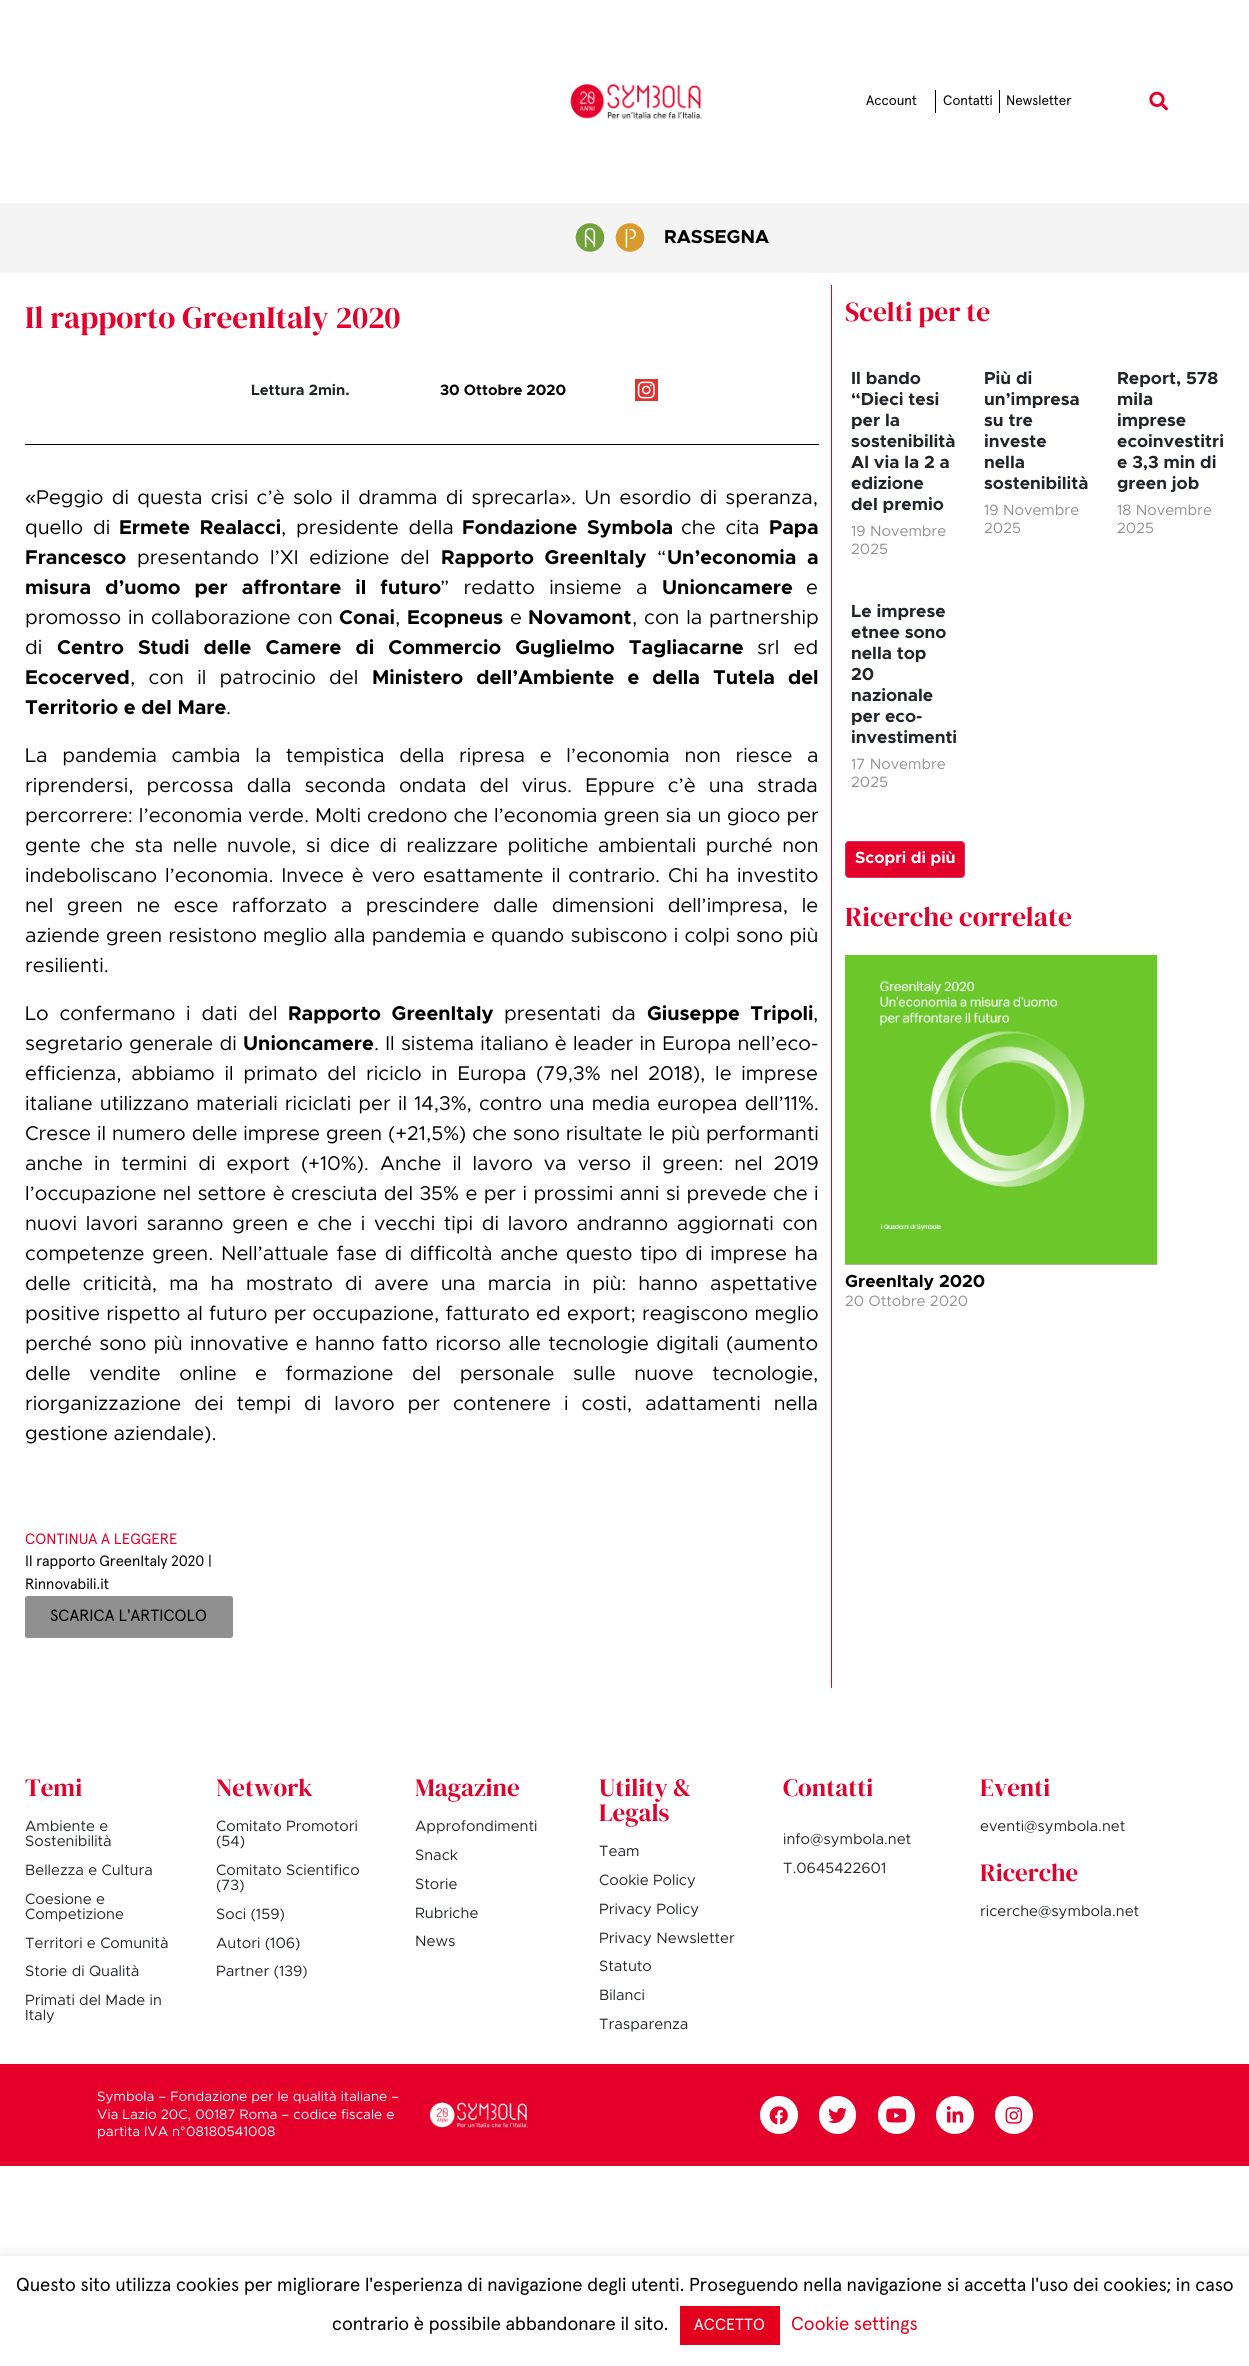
#include <cairo/cairo.h>
#include <math.h>
#include <stddef.h>


static void draw_spaced(cairo_t *cr, double x, double y, const char *s, double letter, double word) {
  cairo_move_to(cr, x, y);
  while (*s) {
    char ch[5] = {0};
    int n = 0;
    do ch[n++] = *s++; while ((*s & 0xC0) == 0x80);
    cairo_show_text(cr, ch);
    cairo_rel_move_to(cr, letter + word * (*ch == ' '), 0);
  }
}

static void rounded_rect(cairo_t *cr, double x, double y, double w, double h, double r) {
  cairo_new_sub_path(cr);
  cairo_arc(cr, x + w - r, y + h - r, r, 0, M_PI / 2);
  cairo_arc(cr, x + r, y + h - r, r, M_PI / 2, M_PI);
  cairo_arc(cr, x + r, y + r, r, M_PI, 1.5 * M_PI);
  cairo_arc(cr, x + w - r, y + r, r, 1.5 * M_PI, 2 * M_PI);
  cairo_close_path(cr);
}

static void draw_shadow(cairo_t *cr, double x, double y, double w, double h, double r, double blur, double alpha) {
  cairo_push_group_with_content(cr, CAIRO_CONTENT_ALPHA);
  cairo_set_operator(cr, CAIRO_OPERATOR_SOURCE);
  for (int i = 15; i >= -15 && fmin(w, h) + blur * i / 3 > 0; i -= 2) {
    double e = blur * i / 6;
    cairo_set_source_rgba(cr, 0, 0, 0, alpha * erfc((i - 1) / 8.5) / 2);
    rounded_rect(cr, x - e, y - e, w + 2 * e, h + 2 * e, fmax(0, fmin(r + e + blur * .6, fmin(w, h) / 2 + e)));
    cairo_fill(cr);
  }
  cairo_pattern_t *soft = cairo_pop_group(cr);
  cairo_mask(cr, soft);
  cairo_pattern_destroy(soft);
}

static void draw_image(cairo_t *cr, const char *path, double x, double y, double w, double h) {
  cairo_surface_t *image = cairo_image_surface_create_from_png(path);
  cairo_save(cr);
  cairo_set_source_surface(cr, image, x, y);
  cairo_rectangle(cr, x, y, w, h);
  cairo_fill(cr);
  cairo_restore(cr);
  cairo_surface_destroy(image);
}

static void draw(cairo_t *cr) {
  cairo_set_source_rgb(cr, 1, 1, 1);
  cairo_paint(cr);
  draw_image(cr, "images/1.png", 570, 84, 133, 35);
  cairo_set_source_rgb(cr, 0, 0, 0);
  cairo_rectangle(cr, 935, 90, 1, 23);
  cairo_fill(cr);
  cairo_rectangle(cr, 999, 90, 1, 23);
  cairo_fill(cr);
  draw_image(cr, "images/2.png", 1149, 91, 20, 20);
  cairo_set_source_rgb(cr, 244 / 255.0, 244 / 255.0, 244 / 255.0);
  cairo_rectangle(cr, 0, 203, 1249, 70);
  cairo_fill(cr);
  draw_image(cr, "images/3.png", 575, 223, 30, 29);
  draw_image(cr, "images/4.png", 615, 223, 30, 29);
  cairo_set_source_rgb(cr, 228 / 255.0, 0, 43 / 255.0);
  cairo_rectangle(cr, 831, 285, 1, 1403);
  cairo_fill(cr);
  cairo_set_source_rgb(cr, 221 / 255.0, 51 / 255.0, 51 / 255.0);
  cairo_rectangle(cr, 635, 379, 23, 22);
  cairo_fill(cr);
  draw_image(cr, "images/5.png", 637, 381, 18, 18);
  cairo_set_source_rgb(cr, 0, 0, 0);
  cairo_rectangle(cr, 25, 444, 794, 1);
  cairo_fill(cr);
  cairo_set_source_rgb(cr, 144 / 255.0, 144 / 255.0, 144 / 255.0);
  rounded_rect(cr, 25, 1596, 208, 42, 2.5);
  cairo_fill(cr);
  cairo_set_source_rgb(cr, 228 / 255.0, 0, 43 / 255.0);
  rounded_rect(cr, 845.5, 841.5, 119, 36, 3.5);
  cairo_fill_preserve(cr);
  cairo_set_source_rgb(cr, 204 / 255.0, 51 / 255.0, 102 / 255.0);
  cairo_set_line_width(cr, 1);
  cairo_stroke(cr);
  draw_image(cr, "images/6.png", 845, 955, 313, 310);
  cairo_set_source_rgb(cr, 228 / 255.0, 0, 43 / 255.0);
  cairo_rectangle(cr, 0, 2064, 1249, 102);
  cairo_fill(cr);
  draw_image(cr, "images/7.png", 430, 2102, 98, 26);
  cairo_set_source_rgb(cr, 1, 1, 1);
  cairo_arc(cr, 779, 2115, 19, 0, 2 * M_PI);
  cairo_fill(cr);
  draw_image(cr, "images/8.png", 769, 2106, 19, 19);
  rounded_rect(cr, 819, 2096, 37, 38, 18.5);
  cairo_fill(cr);
  draw_image(cr, "images/9.png", 828, 2107, 19, 17);
  rounded_rect(cr, 878, 2096, 37, 38, 18.5);
  cairo_fill(cr);
  draw_image(cr, "images/10.png", 886, 2108, 21, 15);
  cairo_arc(cr, 955, 2115, 19, 0, 2 * M_PI);
  cairo_fill(cr);
  draw_image(cr, "images/11.png", 946, 2106, 18, 17);
  cairo_arc(cr, 1014, 2115, 19, 0, 2 * M_PI);
  cairo_fill(cr);
  draw_image(cr, "images/12.png", 1005, 2107, 17, 17);
  cairo_set_source_rgb(cr, 172 / 255.0, 171 / 255.0, 171 / 255.0);
  draw_shadow(cr, 0, 2255, 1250, 110, 0, 6, 0.3);
  cairo_set_source_rgb(cr, 1, 1, 1);
  cairo_rectangle(cr, 0, 2256, 1249, 110);
  cairo_fill(cr);
  cairo_set_source_rgb(cr, 226 / 255.0, 0, 29 / 255.0);
  cairo_rectangle(cr, 680, 2306, 100, 39);
  cairo_fill(cr);
  cairo_select_font_face(cr, "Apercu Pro", CAIRO_FONT_SLANT_NORMAL, CAIRO_FONT_WEIGHT_NORMAL);
  cairo_set_font_size(cr, 13.75);
  cairo_set_source_rgb(cr, 0, 0, 0);
  cairo_move_to(cr, 866, 105);
  cairo_show_text(cr, "Account");
  cairo_move_to(cr, 943, 105);
  cairo_show_text(cr, "Contatti");
  cairo_move_to(cr, 1006, 105);
  cairo_show_text(cr, "Newsletter");
  cairo_select_font_face(cr, "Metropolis", CAIRO_FONT_SLANT_NORMAL, CAIRO_FONT_WEIGHT_BOLD);
  cairo_set_font_size(cr, 18.75);
  cairo_move_to(cr, 664, 243);
  cairo_show_text(cr, "RASSEGNA");
  cairo_select_font_face(cr, "DM Serif Display", CAIRO_FONT_SLANT_NORMAL, CAIRO_FONT_WEIGHT_NORMAL);
  cairo_set_font_size(cr, 31.25);
  cairo_set_source_rgb(cr, 228 / 255.0, 0, 43 / 255.0);
  cairo_move_to(cr, 25, 328);
  cairo_show_text(cr, "Il rapporto GreenItaly 2020");
  cairo_select_font_face(cr, "Metropolis", CAIRO_FONT_SLANT_NORMAL, CAIRO_FONT_WEIGHT_BOLD);
  cairo_set_font_size(cr, 15);
  cairo_set_source_rgb(cr, 33 / 255.0, 37 / 255.0, 41 / 255.0);
  cairo_move_to(cr, 251, 395);
  cairo_show_text(cr, "Lettura 2min.");
  cairo_set_source_rgb(cr, 0, 0, 0);
  cairo_move_to(cr, 440, 395);
  cairo_show_text(cr, "30 Ottobre 2020");
  cairo_select_font_face(cr, "Liberation Sans", CAIRO_FONT_SLANT_NORMAL, CAIRO_FONT_WEIGHT_NORMAL);
  cairo_set_font_size(cr, 20);
  cairo_move_to(cr, 25, 504);
  cairo_show_text(cr, "«");
  cairo_select_font_face(cr, "Metropolis", CAIRO_FONT_SLANT_NORMAL, CAIRO_FONT_WEIGHT_NORMAL);
  draw_spaced(cr, 36, 504, "Peggio di questa crisi c’è solo il dramma di sprecarla", 0, 2.5);
  cairo_select_font_face(cr, "Liberation Sans", CAIRO_FONT_SLANT_NORMAL, CAIRO_FONT_WEIGHT_NORMAL);
  cairo_move_to(cr, 560, 504);
  cairo_show_text(cr, "»");
  cairo_select_font_face(cr, "Metropolis", CAIRO_FONT_SLANT_NORMAL, CAIRO_FONT_WEIGHT_NORMAL);
  draw_spaced(cr, 571, 504, ". Un esordio di speranza,", 0, 2.5);
  draw_spaced(cr, 25, 534, "quello di", 0, 4);
  cairo_select_font_face(cr, "Metropolis", CAIRO_FONT_SLANT_NORMAL, CAIRO_FONT_WEIGHT_BOLD);
  draw_spaced(cr, 119, 534, "Ermete Realacci", 0, 4);
  cairo_select_font_face(cr, "Metropolis", CAIRO_FONT_SLANT_NORMAL, CAIRO_FONT_WEIGHT_NORMAL);
  draw_spaced(cr, 281, 534, ", presidente della", 0, 4);
  cairo_select_font_face(cr, "Metropolis", CAIRO_FONT_SLANT_NORMAL, CAIRO_FONT_WEIGHT_BOLD);
  draw_spaced(cr, 462, 534, "Fondazione Symbola", 0, 4);
  cairo_select_font_face(cr, "Metropolis", CAIRO_FONT_SLANT_NORMAL, CAIRO_FONT_WEIGHT_NORMAL);
  draw_spaced(cr, 681, 534, "che cita", 0, 4);
  cairo_select_font_face(cr, "Metropolis", CAIRO_FONT_SLANT_NORMAL, CAIRO_FONT_WEIGHT_BOLD);
  cairo_move_to(cr, 769, 534);
  cairo_show_text(cr, "Papa");
  cairo_move_to(cr, 25, 564);
  cairo_show_text(cr, "Francesco");
  cairo_select_font_face(cr, "Metropolis", CAIRO_FONT_SLANT_NORMAL, CAIRO_FONT_WEIGHT_NORMAL);
  draw_spaced(cr, 137, 564, "presentando l’XI edizione del", 0, 5);
  cairo_select_font_face(cr, "Metropolis", CAIRO_FONT_SLANT_NORMAL, CAIRO_FONT_WEIGHT_BOLD);
  draw_spaced(cr, 441, 564, "Rapporto GreenItaly", 0, 5);
  cairo_select_font_face(cr, "Metropolis", CAIRO_FONT_SLANT_NORMAL, CAIRO_FONT_WEIGHT_NORMAL);
  cairo_move_to(cr, 657, 564);
  cairo_show_text(cr, "“");
  cairo_select_font_face(cr, "Metropolis", CAIRO_FONT_SLANT_NORMAL, CAIRO_FONT_WEIGHT_BOLD);
  draw_spaced(cr, 667, 564, "Un’economia a", 0, 5);
  draw_spaced(cr, 25, 594, "misura d’uomo per affrontare il futuro", 0, 8.5);
  cairo_select_font_face(cr, "Metropolis", CAIRO_FONT_SLANT_NORMAL, CAIRO_FONT_WEIGHT_NORMAL);
  draw_spaced(cr, 440, 594, "” redatto insieme a", 0, 8.5);
  cairo_select_font_face(cr, "Metropolis", CAIRO_FONT_SLANT_NORMAL, CAIRO_FONT_WEIGHT_BOLD);
  cairo_move_to(cr, 662, 594);
  cairo_show_text(cr, "Unioncamere");
  cairo_select_font_face(cr, "Metropolis", CAIRO_FONT_SLANT_NORMAL, CAIRO_FONT_WEIGHT_NORMAL);
  cairo_move_to(cr, 806, 594);
  cairo_show_text(cr, "e");
  draw_spaced(cr, 25, 624, "promosso in collaborazione con", 0, 1);
  cairo_select_font_face(cr, "Metropolis", CAIRO_FONT_SLANT_NORMAL, CAIRO_FONT_WEIGHT_BOLD);
  cairo_move_to(cr, 339, 624);
  cairo_show_text(cr, "Conai");
  cairo_select_font_face(cr, "Metropolis", CAIRO_FONT_SLANT_NORMAL, CAIRO_FONT_WEIGHT_NORMAL);
  cairo_move_to(cr, 395, 624);
  cairo_show_text(cr, ",");
  cairo_select_font_face(cr, "Metropolis", CAIRO_FONT_SLANT_NORMAL, CAIRO_FONT_WEIGHT_BOLD);
  cairo_move_to(cr, 407, 624);
  cairo_show_text(cr, "Ecopneus");
  cairo_select_font_face(cr, "Metropolis", CAIRO_FONT_SLANT_NORMAL, CAIRO_FONT_WEIGHT_NORMAL);
  cairo_move_to(cr, 510, 624);
  cairo_show_text(cr, "e");
  cairo_select_font_face(cr, "Metropolis", CAIRO_FONT_SLANT_NORMAL, CAIRO_FONT_WEIGHT_BOLD);
  cairo_move_to(cr, 528, 624);
  cairo_show_text(cr, "Novamont");
  cairo_select_font_face(cr, "Metropolis", CAIRO_FONT_SLANT_NORMAL, CAIRO_FONT_WEIGHT_NORMAL);
  draw_spaced(cr, 632, 624, ", con la partnership", 0, 1);
  cairo_move_to(cr, 25, 654);
  cairo_show_text(cr, "di");
  cairo_select_font_face(cr, "Metropolis", CAIRO_FONT_SLANT_NORMAL, CAIRO_FONT_WEIGHT_BOLD);
  draw_spaced(cr, 57, 654, "Centro Studi delle Camere di Commercio Guglielmo Tagliacarne", 0, 8.5);
  cairo_select_font_face(cr, "Metropolis", CAIRO_FONT_SLANT_NORMAL, CAIRO_FONT_WEIGHT_NORMAL);
  draw_spaced(cr, 757, 654, "srl ed", 0, 8.5);
  cairo_select_font_face(cr, "Metropolis", CAIRO_FONT_SLANT_NORMAL, CAIRO_FONT_WEIGHT_BOLD);
  cairo_move_to(cr, 25, 684);
  cairo_show_text(cr, "Ecocerved");
  cairo_select_font_face(cr, "Metropolis", CAIRO_FONT_SLANT_NORMAL, CAIRO_FONT_WEIGHT_NORMAL);
  draw_spaced(cr, 130, 684, ", con il patrocinio del", 0, 7.5);
  cairo_select_font_face(cr, "Metropolis", CAIRO_FONT_SLANT_NORMAL, CAIRO_FONT_WEIGHT_BOLD);
  draw_spaced(cr, 372, 684, "Ministero dell’Ambiente e della Tutela del", 0, 7.5);
  cairo_move_to(cr, 25, 714);
  cairo_show_text(cr, "Territorio e del Mare");
  cairo_select_font_face(cr, "Metropolis", CAIRO_FONT_SLANT_NORMAL, CAIRO_FONT_WEIGHT_NORMAL);
  cairo_move_to(cr, 226, 714);
  cairo_show_text(cr, ".");
  draw_spaced(cr, 25, 762, "La pandemia cambia la tempistica della ripresa e l’economia non riesce a", 0, 8.9);
  draw_spaced(cr, 25, 792, "riprendersi, percossa dalla seconda ondata del virus. Eppure c’è una strada", 0, 7.25);
  draw_spaced(cr, 25, 822, "percorrere: l’economia verde. Molti credono che l’economia green sia un gioco per", 0, 0.2);
  draw_spaced(cr, 25, 852, "gente che sta nelle nuvole, si dice di realizzare politiche ambientali purché non", 0, 3.75);
  draw_spaced(cr, 25, 882, "indeboliscano l’economia. Invece è vero esattamente il contrario. Chi ha investito", 0, 2.1);
  draw_spaced(cr, 25, 912, "nel green ne esce rafforzato a prescindere dalle dimensioni dell’impresa, le", 0, 7.75);
  draw_spaced(cr, 25, 942, "aziende green resistono meglio alla pandemia e quando subiscono i colpi sono più", 0, 0.5);
  cairo_move_to(cr, 25, 972);
  cairo_show_text(cr, "resilienti.");
  draw_spaced(cr, 25, 1020, "Lo confermano i dati del", 0, 5);
  cairo_select_font_face(cr, "Metropolis", CAIRO_FONT_SLANT_NORMAL, CAIRO_FONT_WEIGHT_BOLD);
  draw_spaced(cr, 288, 1020, "Rapporto GreenItaly", 0, 5);
  cairo_select_font_face(cr, "Metropolis", CAIRO_FONT_SLANT_NORMAL, CAIRO_FONT_WEIGHT_NORMAL);
  draw_spaced(cr, 504, 1020, "presentati da", 0, 5);
  cairo_select_font_face(cr, "Metropolis", CAIRO_FONT_SLANT_NORMAL, CAIRO_FONT_WEIGHT_BOLD);
  draw_spaced(cr, 647, 1020, "Giuseppe Tripoli", 0, 5);
  cairo_select_font_face(cr, "Metropolis", CAIRO_FONT_SLANT_NORMAL, CAIRO_FONT_WEIGHT_NORMAL);
  cairo_move_to(cr, 813, 1020);
  cairo_show_text(cr, ",");
  draw_spaced(cr, 25, 1050, "segretario generale di", 0, 0.5);
  cairo_select_font_face(cr, "Metropolis", CAIRO_FONT_SLANT_NORMAL, CAIRO_FONT_WEIGHT_BOLD);
  cairo_move_to(cr, 243, 1050);
  cairo_show_text(cr, "Unioncamere");
  cairo_select_font_face(cr, "Metropolis", CAIRO_FONT_SLANT_NORMAL, CAIRO_FONT_WEIGHT_NORMAL);
  draw_spaced(cr, 374, 1050, ". Il sistema italiano è leader in Europa nell’eco-", 0, 0.5);
  draw_spaced(cr, 25, 1080, "efficienza, abbiamo il primato del riciclo in Europa (79,3% nel 2018), le imprese", 0, 3.9);
  draw_spaced(cr, 25, 1110, "italiane utilizzano materiali riciclati per il 14,3%, contro una media europea dell’11%.", 0, 1.4);
  draw_spaced(cr, 25, 1140, "Cresce il numero delle imprese green (+21,5%) che sono risultate le più performanti", 0, 0.2);
  draw_spaced(cr, 25, 1170, "anche in termini di export (+10%). Anche il lavoro va verso il green: nel 2019", 0, 5.25);
  draw_spaced(cr, 25, 1200, "l’occupazione nel settore è cresciuta del 35% e per i prossimi anni si prevede che i", 0, 0.6);
  draw_spaced(cr, 25, 1230, "nuovi lavori saranno green e che i vecchi tipi di lavoro andranno aggiornati con", 0, 2.9);
  draw_spaced(cr, 25, 1260, "competenze green. Nell’attuale fase di difficoltà anche questo tipo di imprese ha", 0, 2);
  draw_spaced(cr, 25, 1290, "delle criticità, ma ha mostrato di avere una marcia in più: hanno aspettative", 0, 6.25);
  draw_spaced(cr, 25, 1320, "positive rispetto al futuro per occupazione, fatturato ed export; reagiscono meglio", 0, 0.5);
  draw_spaced(cr, 25, 1350, "perché sono più innovative e hanno fatto ricorso alle tecnologie digitali (aumento", 0, 1.5);
  draw_spaced(cr, 25, 1380, "delle vendite online e formazione del personale sulle nuove tecnologie,", 0, 12.75);
  draw_spaced(cr, 25, 1410, "riorganizzazione dei tempi di lavoro per contenere i costi, adattamenti nella", 0, 7.25);
  cairo_move_to(cr, 25, 1440);
  cairo_show_text(cr, "gestione aziendale).");
  cairo_select_font_face(cr, "Apercu Pro", CAIRO_FONT_SLANT_NORMAL, CAIRO_FONT_WEIGHT_NORMAL);
  cairo_set_font_size(cr, 15);
  cairo_set_source_rgb(cr, 228 / 255.0, 0, 43 / 255.0);
  cairo_move_to(cr, 25, 1544);
  cairo_show_text(cr, "CONTINUA A LEGGERE");
  cairo_set_source_rgb(cr, 0, 0, 0);
  cairo_move_to(cr, 25, 1566);
  cairo_show_text(cr, "Il rapporto GreenItaly 2020 |");
  cairo_move_to(cr, 25, 1589);
  cairo_show_text(cr, "Rinnovabili.it");
  cairo_set_font_size(cr, 16.25);
  cairo_move_to(cr, 50, 1621);
  cairo_show_text(cr, "SCARICA L'ARTICOLO");
  cairo_select_font_face(cr, "DM Serif Display", CAIRO_FONT_SLANT_NORMAL, CAIRO_FONT_WEIGHT_NORMAL);
  cairo_set_font_size(cr, 27.5);
  cairo_set_source_rgb(cr, 228 / 255.0, 0, 43 / 255.0);
  cairo_move_to(cr, 845, 321);
  cairo_show_text(cr, "Scelti per te");
  cairo_select_font_face(cr, "Metropolis", CAIRO_FONT_SLANT_NORMAL, CAIRO_FONT_WEIGHT_BOLD);
  cairo_set_font_size(cr, 17.5);
  cairo_set_source_rgb(cr, 33 / 255.0, 37 / 255.0, 41 / 255.0);
  cairo_move_to(cr, 851, 384);
  cairo_show_text(cr, "Il bando");
  cairo_move_to(cr, 851, 405);
  cairo_show_text(cr, "“Dieci tesi");
  cairo_move_to(cr, 851, 426);
  cairo_show_text(cr, "per la");
  cairo_move_to(cr, 851, 447);
  cairo_show_text(cr, "sostenibilità");
  cairo_move_to(cr, 851, 468);
  cairo_show_text(cr, "Al via la 2 a");
  cairo_move_to(cr, 851, 489);
  cairo_show_text(cr, "edizione");
  cairo_move_to(cr, 851, 510);
  cairo_show_text(cr, "del premio");
  cairo_select_font_face(cr, "Metropolis", CAIRO_FONT_SLANT_NORMAL, CAIRO_FONT_WEIGHT_NORMAL);
  cairo_set_font_size(cr, 15);
  cairo_set_source_rgb(cr, 144 / 255.0, 144 / 255.0, 144 / 255.0);
  cairo_move_to(cr, 851, 536);
  cairo_show_text(cr, "19 Novembre");
  cairo_move_to(cr, 851, 554);
  cairo_show_text(cr, "2025");
  cairo_select_font_face(cr, "Metropolis", CAIRO_FONT_SLANT_NORMAL, CAIRO_FONT_WEIGHT_BOLD);
  cairo_set_font_size(cr, 17.5);
  cairo_set_source_rgb(cr, 33 / 255.0, 37 / 255.0, 41 / 255.0);
  cairo_move_to(cr, 984, 384);
  cairo_show_text(cr, "Più di");
  cairo_move_to(cr, 984, 405);
  cairo_show_text(cr, "un’impresa");
  cairo_move_to(cr, 984, 426);
  cairo_show_text(cr, "su tre");
  cairo_move_to(cr, 984, 447);
  cairo_show_text(cr, "investe");
  cairo_move_to(cr, 984, 468);
  cairo_show_text(cr, "nella");
  cairo_move_to(cr, 984, 489);
  cairo_show_text(cr, "sostenibilità");
  cairo_select_font_face(cr, "Metropolis", CAIRO_FONT_SLANT_NORMAL, CAIRO_FONT_WEIGHT_NORMAL);
  cairo_set_font_size(cr, 15);
  cairo_set_source_rgb(cr, 144 / 255.0, 144 / 255.0, 144 / 255.0);
  cairo_move_to(cr, 984, 515);
  cairo_show_text(cr, "19 Novembre");
  cairo_move_to(cr, 984, 533);
  cairo_show_text(cr, "2025");
  cairo_select_font_face(cr, "Metropolis", CAIRO_FONT_SLANT_NORMAL, CAIRO_FONT_WEIGHT_BOLD);
  cairo_set_font_size(cr, 17.5);
  cairo_set_source_rgb(cr, 33 / 255.0, 37 / 255.0, 41 / 255.0);
  cairo_move_to(cr, 1117, 384);
  cairo_show_text(cr, "Report, 578");
  cairo_move_to(cr, 1117, 405);
  cairo_show_text(cr, "miIa");
  cairo_move_to(cr, 1117, 426);
  cairo_show_text(cr, "imprese");
  cairo_move_to(cr, 1117, 447);
  cairo_show_text(cr, "ecoinvestitri");
  cairo_move_to(cr, 1117, 468);
  cairo_show_text(cr, "e 3,3 min di");
  cairo_move_to(cr, 1117, 489);
  cairo_show_text(cr, "green job");
  cairo_select_font_face(cr, "Metropolis", CAIRO_FONT_SLANT_NORMAL, CAIRO_FONT_WEIGHT_NORMAL);
  cairo_set_font_size(cr, 15);
  cairo_set_source_rgb(cr, 144 / 255.0, 144 / 255.0, 144 / 255.0);
  cairo_move_to(cr, 1117, 515);
  cairo_show_text(cr, "18 Novembre");
  cairo_move_to(cr, 1117, 533);
  cairo_show_text(cr, "2025");
  cairo_select_font_face(cr, "Metropolis", CAIRO_FONT_SLANT_NORMAL, CAIRO_FONT_WEIGHT_BOLD);
  cairo_set_font_size(cr, 17.5);
  cairo_set_source_rgb(cr, 33 / 255.0, 37 / 255.0, 41 / 255.0);
  cairo_move_to(cr, 851, 617);
  cairo_show_text(cr, "Le imprese");
  cairo_move_to(cr, 851, 638);
  cairo_show_text(cr, "etnee sono");
  cairo_move_to(cr, 851, 659);
  cairo_show_text(cr, "nella top");
  cairo_move_to(cr, 851, 680);
  cairo_show_text(cr, "20");
  cairo_move_to(cr, 851, 701);
  cairo_show_text(cr, "nazionale");
  cairo_move_to(cr, 851, 722);
  cairo_show_text(cr, "per eco-");
  cairo_move_to(cr, 851, 743);
  cairo_show_text(cr, "investimenti");
  cairo_select_font_face(cr, "Metropolis", CAIRO_FONT_SLANT_NORMAL, CAIRO_FONT_WEIGHT_NORMAL);
  cairo_set_font_size(cr, 15);
  cairo_set_source_rgb(cr, 144 / 255.0, 144 / 255.0, 144 / 255.0);
  cairo_move_to(cr, 851, 769);
  cairo_show_text(cr, "17 Novembre");
  cairo_move_to(cr, 851, 787);
  cairo_show_text(cr, "2025");
  cairo_select_font_face(cr, "Metropolis", CAIRO_FONT_SLANT_NORMAL, CAIRO_FONT_WEIGHT_BOLD);
  cairo_set_font_size(cr, 16.25);
  cairo_set_source_rgb(cr, 1, 1, 1);
  cairo_move_to(cr, 855, 863);
  cairo_show_text(cr, "Scopri di più");
  cairo_select_font_face(cr, "DM Serif Display", CAIRO_FONT_SLANT_NORMAL, CAIRO_FONT_WEIGHT_NORMAL);
  cairo_set_font_size(cr, 27.5);
  cairo_set_source_rgb(cr, 228 / 255.0, 0, 43 / 255.0);
  cairo_move_to(cr, 845, 926);
  cairo_show_text(cr, "Ricerche correlate");
  cairo_select_font_face(cr, "Metropolis", CAIRO_FONT_SLANT_NORMAL, CAIRO_FONT_WEIGHT_BOLD);
  cairo_set_font_size(cr, 17.5);
  cairo_set_source_rgb(cr, 0, 0, 0);
  cairo_move_to(cr, 845, 1287);
  cairo_show_text(cr, "GreenItaly 2020");
  cairo_select_font_face(cr, "Metropolis", CAIRO_FONT_SLANT_NORMAL, CAIRO_FONT_WEIGHT_NORMAL);
  cairo_set_font_size(cr, 15);
  cairo_set_source_rgb(cr, 144 / 255.0, 144 / 255.0, 144 / 255.0);
  cairo_move_to(cr, 845, 1306);
  cairo_show_text(cr, "20 Ottobre 2020");
  cairo_select_font_face(cr, "DM Serif Display", CAIRO_FONT_SLANT_NORMAL, CAIRO_FONT_WEIGHT_NORMAL);
  cairo_set_font_size(cr, 25);
  cairo_set_source_rgb(cr, 228 / 255.0, 0, 43 / 255.0);
  cairo_move_to(cr, 25, 1796);
  cairo_show_text(cr, "Temi");
  cairo_select_font_face(cr, "Metropolis", CAIRO_FONT_SLANT_NORMAL, CAIRO_FONT_WEIGHT_NORMAL);
  cairo_set_font_size(cr, 15);
  cairo_set_source_rgb(cr, 33 / 255.0, 37 / 255.0, 41 / 255.0);
  cairo_move_to(cr, 25, 1831);
  cairo_show_text(cr, "Ambiente e");
  cairo_move_to(cr, 25, 1846);
  cairo_show_text(cr, "Sostenibilità");
  cairo_move_to(cr, 25, 1875);
  cairo_show_text(cr, "Bellezza e Cultura");
  cairo_move_to(cr, 25, 1904);
  cairo_show_text(cr, "Coesione e");
  cairo_move_to(cr, 25, 1919);
  cairo_show_text(cr, "Competizione");
  cairo_move_to(cr, 25, 1948);
  cairo_show_text(cr, "Territori e Comunità");
  cairo_move_to(cr, 25, 1976);
  cairo_show_text(cr, "Storie di Qualità");
  cairo_move_to(cr, 25, 2005);
  cairo_show_text(cr, "Primati del Made in");
  cairo_move_to(cr, 25, 2020);
  cairo_show_text(cr, "Italy");
  cairo_select_font_face(cr, "DM Serif Display", CAIRO_FONT_SLANT_NORMAL, CAIRO_FONT_WEIGHT_NORMAL);
  cairo_set_font_size(cr, 25);
  cairo_set_source_rgb(cr, 228 / 255.0, 0, 43 / 255.0);
  cairo_move_to(cr, 216, 1796);
  cairo_show_text(cr, "Network");
  cairo_select_font_face(cr, "Metropolis", CAIRO_FONT_SLANT_NORMAL, CAIRO_FONT_WEIGHT_NORMAL);
  cairo_set_font_size(cr, 15);
  cairo_set_source_rgb(cr, 33 / 255.0, 37 / 255.0, 41 / 255.0);
  cairo_move_to(cr, 216, 1831);
  cairo_show_text(cr, "Comitato Promotori");
  cairo_move_to(cr, 216, 1846);
  cairo_show_text(cr, "(54)");
  cairo_move_to(cr, 216, 1875);
  cairo_show_text(cr, "Comitato Scientifico");
  cairo_move_to(cr, 216, 1890);
  cairo_show_text(cr, "(73)");
  cairo_move_to(cr, 216, 1919);
  cairo_show_text(cr, "Soci (159)");
  cairo_move_to(cr, 216, 1948);
  cairo_show_text(cr, "Autori (106)");
  cairo_move_to(cr, 216, 1976);
  cairo_show_text(cr, "Partner (139)");
  cairo_select_font_face(cr, "DM Serif Display", CAIRO_FONT_SLANT_NORMAL, CAIRO_FONT_WEIGHT_NORMAL);
  cairo_set_font_size(cr, 25);
  cairo_set_source_rgb(cr, 228 / 255.0, 0, 43 / 255.0);
  cairo_move_to(cr, 415, 1796);
  cairo_show_text(cr, "Magazine");
  cairo_select_font_face(cr, "Metropolis", CAIRO_FONT_SLANT_NORMAL, CAIRO_FONT_WEIGHT_NORMAL);
  cairo_set_font_size(cr, 15);
  cairo_set_source_rgb(cr, 33 / 255.0, 37 / 255.0, 41 / 255.0);
  cairo_move_to(cr, 415, 1831);
  cairo_show_text(cr, "Approfondimenti");
  cairo_move_to(cr, 415, 1860);
  cairo_show_text(cr, "Snack");
  cairo_move_to(cr, 415, 1889);
  cairo_show_text(cr, "Storie");
  cairo_move_to(cr, 415, 1918);
  cairo_show_text(cr, "Rubriche");
  cairo_move_to(cr, 415, 1946);
  cairo_show_text(cr, "News");
  cairo_select_font_face(cr, "DM Serif Display", CAIRO_FONT_SLANT_NORMAL, CAIRO_FONT_WEIGHT_NORMAL);
  cairo_set_font_size(cr, 25);
  cairo_set_source_rgb(cr, 228 / 255.0, 0, 43 / 255.0);
  cairo_move_to(cr, 599, 1796);
  cairo_show_text(cr, "Utility &");
  cairo_move_to(cr, 599, 1821);
  cairo_show_text(cr, "Legals");
  cairo_select_font_face(cr, "Metropolis", CAIRO_FONT_SLANT_NORMAL, CAIRO_FONT_WEIGHT_NORMAL);
  cairo_set_font_size(cr, 15);
  cairo_set_source_rgb(cr, 33 / 255.0, 37 / 255.0, 41 / 255.0);
  cairo_move_to(cr, 599, 1856);
  cairo_show_text(cr, "Team");
  cairo_move_to(cr, 599, 1885);
  cairo_show_text(cr, "Cookie Policy");
  cairo_move_to(cr, 599, 1914);
  cairo_show_text(cr, "Privacy Policy");
  cairo_move_to(cr, 599, 1943);
  cairo_show_text(cr, "Privacy Newsletter");
  cairo_move_to(cr, 599, 1971);
  cairo_show_text(cr, "Statuto");
  cairo_move_to(cr, 599, 2000);
  cairo_show_text(cr, "Bilanci");
  cairo_move_to(cr, 599, 2029);
  cairo_show_text(cr, "Trasparenza");
  cairo_select_font_face(cr, "DM Serif Display", CAIRO_FONT_SLANT_NORMAL, CAIRO_FONT_WEIGHT_NORMAL);
  cairo_set_font_size(cr, 25);
  cairo_set_source_rgb(cr, 228 / 255.0, 0, 43 / 255.0);
  cairo_move_to(cr, 783, 1796);
  cairo_show_text(cr, "Contatti");
  cairo_select_font_face(cr, "Metropolis", CAIRO_FONT_SLANT_NORMAL, CAIRO_FONT_WEIGHT_NORMAL);
  cairo_set_font_size(cr, 15);
  cairo_set_source_rgb(cr, 33 / 255.0, 37 / 255.0, 41 / 255.0);
  cairo_move_to(cr, 783, 1844);
  cairo_show_text(cr, "info@symbola.net");
  cairo_move_to(cr, 783, 1873);
  cairo_show_text(cr, "T.0645422601");
  cairo_select_font_face(cr, "DM Serif Display", CAIRO_FONT_SLANT_NORMAL, CAIRO_FONT_WEIGHT_NORMAL);
  cairo_set_font_size(cr, 25);
  cairo_set_source_rgb(cr, 228 / 255.0, 0, 43 / 255.0);
  cairo_move_to(cr, 980, 1796);
  cairo_show_text(cr, "Eventi");
  cairo_select_font_face(cr, "Metropolis", CAIRO_FONT_SLANT_NORMAL, CAIRO_FONT_WEIGHT_NORMAL);
  cairo_set_font_size(cr, 15);
  cairo_set_source_rgb(cr, 33 / 255.0, 37 / 255.0, 41 / 255.0);
  cairo_move_to(cr, 980, 1831);
  cairo_show_text(cr, "eventi@symbola.net");
  cairo_select_font_face(cr, "DM Serif Display", CAIRO_FONT_SLANT_NORMAL, CAIRO_FONT_WEIGHT_NORMAL);
  cairo_set_font_size(cr, 25);
  cairo_set_source_rgb(cr, 228 / 255.0, 0, 43 / 255.0);
  cairo_move_to(cr, 980, 1881);
  cairo_show_text(cr, "Ricerche");
  cairo_select_font_face(cr, "Metropolis", CAIRO_FONT_SLANT_NORMAL, CAIRO_FONT_WEIGHT_NORMAL);
  cairo_set_font_size(cr, 15);
  cairo_set_source_rgb(cr, 33 / 255.0, 37 / 255.0, 41 / 255.0);
  cairo_move_to(cr, 980, 1916);
  cairo_show_text(cr, "ricerche@symbola.net");
  cairo_set_font_size(cr, 13.75);
  cairo_set_source_rgb(cr, 1, 1, 1);
  cairo_move_to(cr, 97, 2101);
  cairo_show_text(cr, "Symbola – Fondazione per le qualità italiane –");
  cairo_move_to(cr, 97, 2119);
  cairo_show_text(cr, "Via Lazio 20C, 00187 Roma – codice fiscale e");
  cairo_move_to(cr, 97, 2136);
  cairo_show_text(cr, "partita IVA n");
  cairo_select_font_face(cr, "Liberation Sans", CAIRO_FONT_SLANT_NORMAL, CAIRO_FONT_WEIGHT_NORMAL);
  cairo_move_to(cr, 180, 2136);
  cairo_show_text(cr, "°");
  cairo_select_font_face(cr, "Metropolis", CAIRO_FONT_SLANT_NORMAL, CAIRO_FONT_WEIGHT_NORMAL);
  cairo_move_to(cr, 186, 2136);
  cairo_show_text(cr, "08180541008");
  cairo_select_font_face(cr, "Apercu Pro", CAIRO_FONT_SLANT_NORMAL, CAIRO_FONT_WEIGHT_NORMAL);
  cairo_set_font_size(cr, 18.75);
  cairo_set_source_rgb(cr, 0, 0, 0);
  cairo_move_to(cr, 16, 2291);
  cairo_show_text(cr, "Questo sito utilizza cookies per migliorare l'esperienza di navigazione degli utenti. Proseguendo nella navigazione si accetta l'uso dei cookies; in caso");
  cairo_move_to(cr, 332, 2330);
  cairo_show_text(cr, "contrario è possibile abbandonare il sito.");
  cairo_set_font_size(cr, 16.25);
  cairo_set_source_rgb(cr, 1, 1, 1);
  cairo_move_to(cr, 694, 2330);
  cairo_show_text(cr, "ACCETTO");
  cairo_set_font_size(cr, 18.75);
  cairo_set_source_rgb(cr, 226 / 255.0, 0, 29 / 255.0);
  cairo_move_to(cr, 791, 2330);
  cairo_show_text(cr, "Cookie settings");
}

int main(void) {
  cairo_surface_t *surface = cairo_image_surface_create(CAIRO_FORMAT_RGB24, 1249, 2366);
  cairo_t *cr = cairo_create(surface);
  cairo_font_options_t *options = cairo_font_options_create();
  cairo_font_options_set_hint_metrics(options, CAIRO_HINT_METRICS_OFF);
  cairo_font_options_set_hint_style(options, CAIRO_HINT_STYLE_NONE);
  cairo_set_font_options(cr, options);
  cairo_set_miter_limit(cr, 4);
  draw(cr);
  cairo_surface_write_to_png(surface, "out.png");
  cairo_font_options_destroy(options);
  cairo_destroy(cr);
  cairo_surface_destroy(surface);
  return 0;
}
